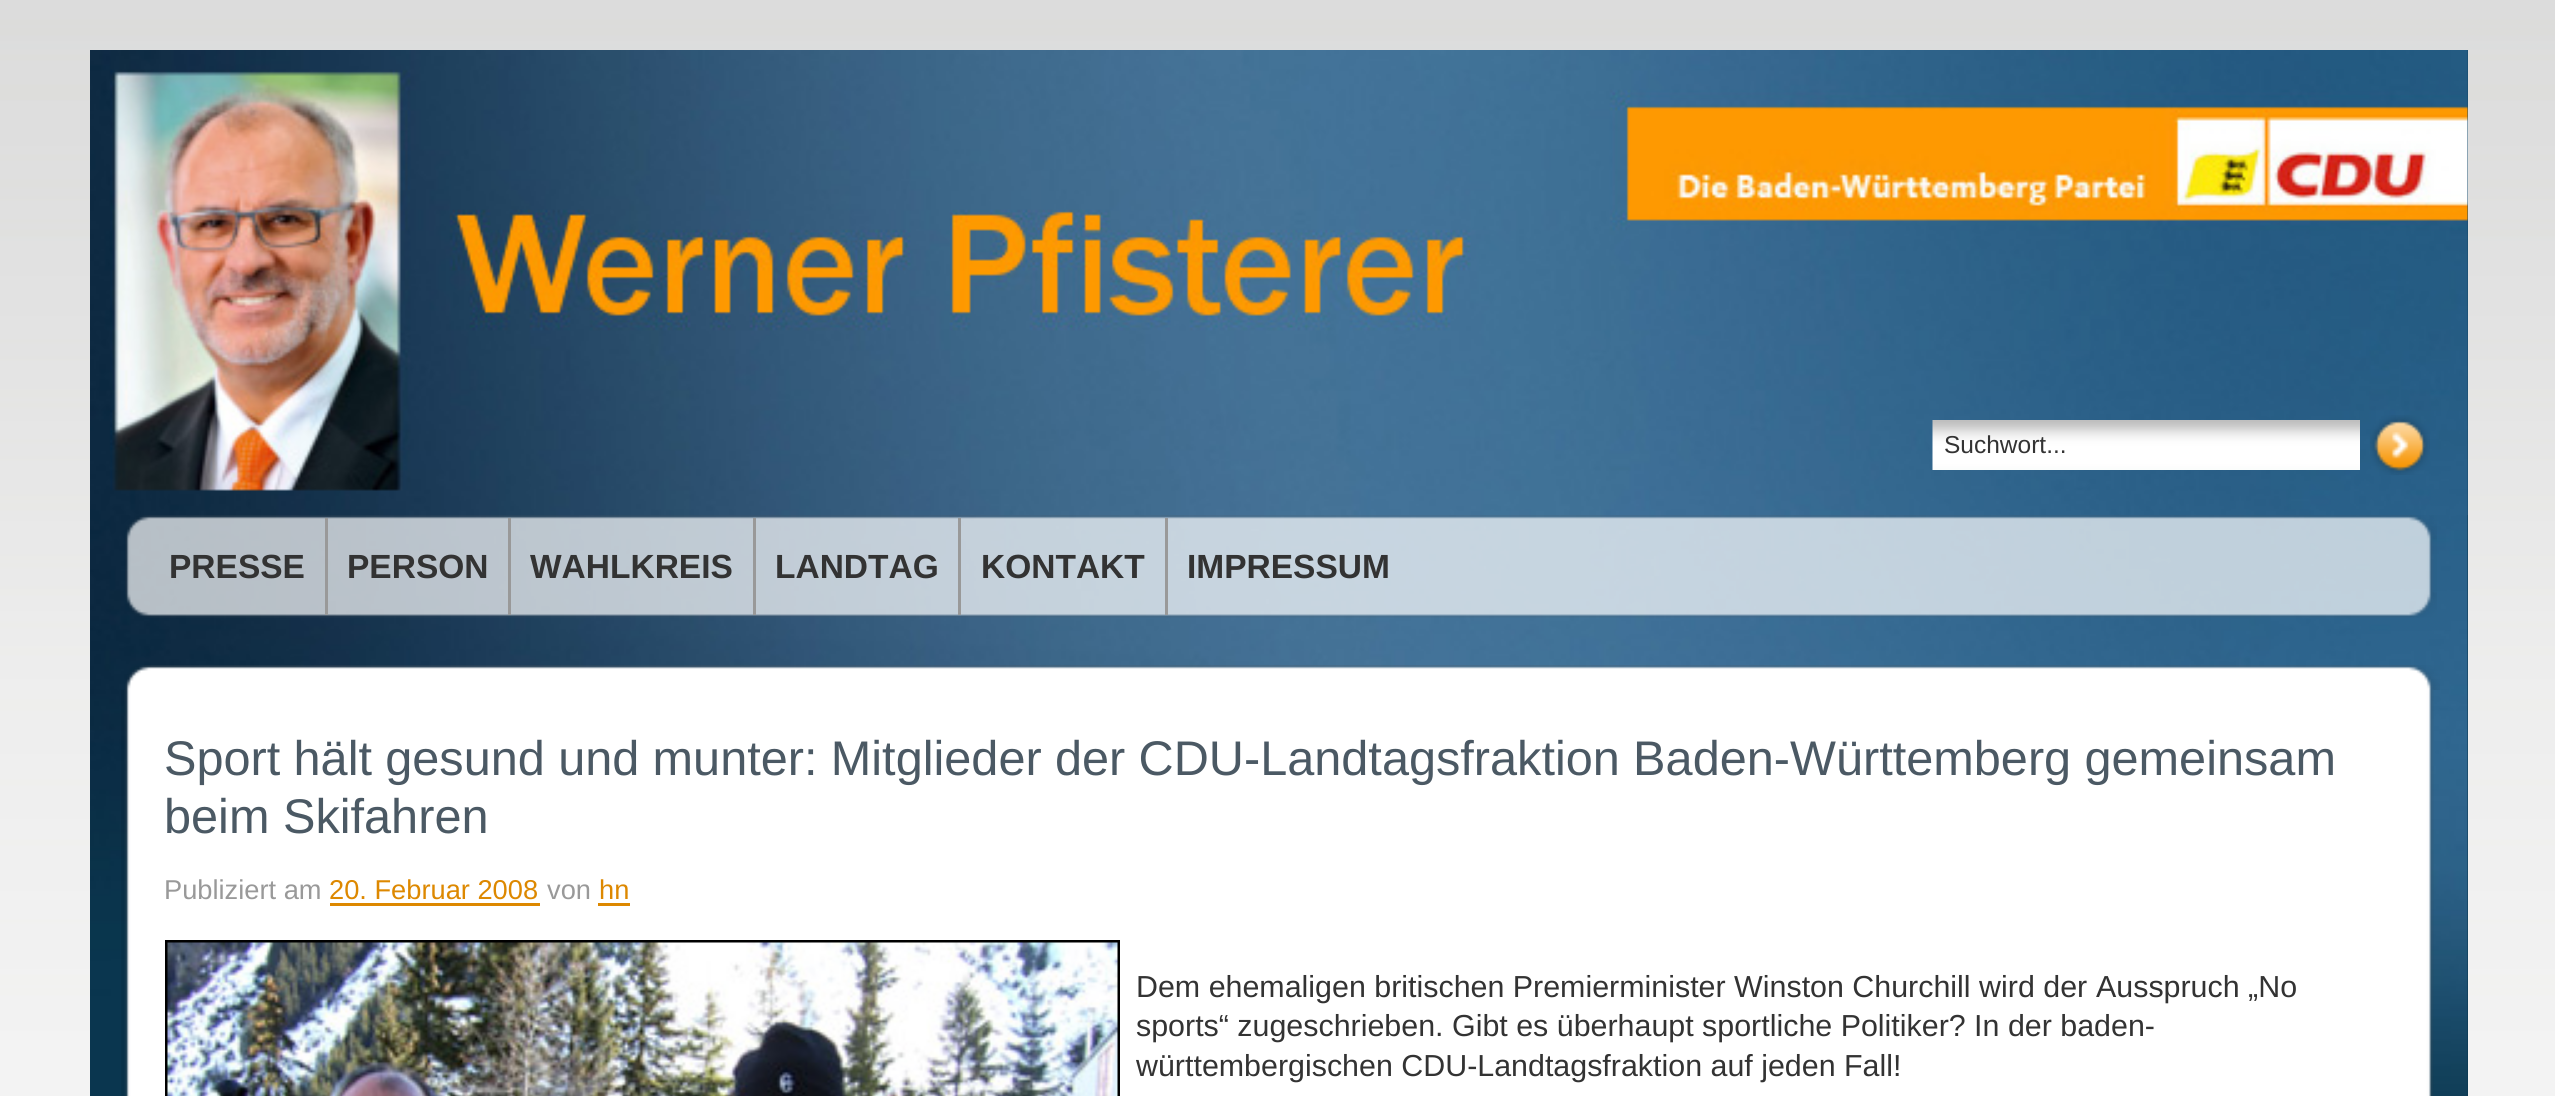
#include <cairo/cairo.h>
#include <math.h>
#include <stddef.h>


static void draw_spaced(cairo_t *cr, double x, double y, const char *s, double letter, double word) {
  cairo_move_to(cr, x, y);
  while (*s) {
    char ch[5] = {0};
    int n = 0;
    do ch[n++] = *s++; while ((*s & 0xC0) == 0x80);
    cairo_show_text(cr, ch);
    cairo_rel_move_to(cr, letter + word * (*ch == ' '), 0);
  }
}

static void draw_image(cairo_t *cr, const char *path, double x, double y, double w, double h) {
  cairo_surface_t *image = cairo_image_surface_create_from_png(path);
  cairo_save(cr);
  cairo_set_source_surface(cr, image, x, y);
  cairo_rectangle(cr, x, y, w, h);
  cairo_fill(cr);
  cairo_restore(cr);
  cairo_surface_destroy(image);
}

static void draw(cairo_t *cr) {
  cairo_set_source_rgb(cr, 1, 1, 1);
  cairo_paint(cr);
  draw_image(cr, "images/1.png", 0, 0, 2555, 1096);
  cairo_set_source_rgb(cr, 10 / 255.0, 55 / 255.0, 79 / 255.0);
  cairo_rectangle(cr, 2467, 50, 1, 1046);
  cairo_fill(cr);
  draw_image(cr, "images/2.png", 90, 50, 2378, 1046);
  draw_image(cr, "images/3.png", 110, 50, 2358, 465);
  draw_image(cr, "images/4.png", 1932, 420, 428, 50);
  draw_image(cr, "images/5.png", 2370, 415, 60, 60);
  draw_image(cr, "images/6.png", 125, 515, 2312, 103);
  cairo_set_source_rgb(cr, 153 / 255.0, 153 / 255.0, 153 / 255.0);
  cairo_rectangle(cr, 325, 518, 3, 97);
  cairo_fill(cr);
  cairo_rectangle(cr, 508, 518, 3, 97);
  cairo_fill(cr);
  cairo_rectangle(cr, 753, 518, 3, 97);
  cairo_fill(cr);
  cairo_rectangle(cr, 958, 518, 3, 97);
  cairo_fill(cr);
  cairo_rectangle(cr, 1165, 518, 3, 97);
  cairo_fill(cr);
  draw_image(cr, "images/7.png", 125, 665, 2315, 25);
  draw_image(cr, "images/8.png", 121, 690, 2313, 406);
  cairo_set_source_rgb(cr, 221 / 255.0, 136 / 255.0, 0);
  cairo_rectangle(cr, 330, 903, 210, 3);
  cairo_fill(cr);
  cairo_rectangle(cr, 598, 903, 32, 3);
  cairo_fill(cr);
  cairo_rectangle(cr, 166.5, 941.5, 952, 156);
  cairo_set_source_rgb(cr, 0, 0, 0);
  cairo_set_line_width(cr, 3);
  cairo_stroke(cr);
  draw_image(cr, "images/9.png", 167, 942, 951, 154);
  cairo_select_font_face(cr, "Liberation Sans", CAIRO_FONT_SLANT_NORMAL, CAIRO_FONT_WEIGHT_NORMAL);
  cairo_set_font_size(cr, 24.5);
  cairo_set_source_rgb(cr, 51 / 255.0, 51 / 255.0, 51 / 255.0);
  cairo_move_to(cr, 1944, 453);
  cairo_show_text(cr, "Suchwort...");
  cairo_select_font_face(cr, "Liberation Sans", CAIRO_FONT_SLANT_NORMAL, CAIRO_FONT_WEIGHT_BOLD);
  cairo_set_font_size(cr, 33.5);
  cairo_move_to(cr, 169, 578);
  cairo_show_text(cr, "PRESSE");
  cairo_move_to(cr, 347, 578);
  cairo_show_text(cr, "PERSON");
  cairo_move_to(cr, 530, 578);
  cairo_show_text(cr, "WAHLKREIS");
  cairo_move_to(cr, 775, 578);
  cairo_show_text(cr, "LANDTAG");
  cairo_move_to(cr, 981, 578);
  cairo_show_text(cr, "KONTAKT");
  cairo_move_to(cr, 1187, 578);
  cairo_show_text(cr, "IMPRESSUM");
  cairo_select_font_face(cr, "Liberation Sans", CAIRO_FONT_SLANT_NORMAL, CAIRO_FONT_WEIGHT_NORMAL);
  cairo_set_font_size(cr, 48.65);
  cairo_set_source_rgb(cr, 75 / 255.0, 89 / 255.0, 100 / 255.0);
  draw_spaced(cr, 164, 775, "Sport hält gesund und munter: Mitglieder der CDU-Landtagsfraktion Baden-Württemberg gemeinsam", 0, -0.25);
  cairo_move_to(cr, 164, 833);
  cairo_show_text(cr, "beim Skifahren");
  cairo_set_font_size(cr, 27.25);
  cairo_set_source_rgb(cr, 153 / 255.0, 153 / 255.0, 153 / 255.0);
  cairo_move_to(cr, 164, 899);
  cairo_show_text(cr, "Publiziert am");
  cairo_set_source_rgb(cr, 221 / 255.0, 136 / 255.0, 0);
  cairo_move_to(cr, 329, 899);
  cairo_show_text(cr, "20. Februar 2008");
  cairo_set_source_rgb(cr, 153 / 255.0, 153 / 255.0, 153 / 255.0);
  cairo_move_to(cr, 547, 899);
  cairo_show_text(cr, "von");
  cairo_set_source_rgb(cr, 221 / 255.0, 136 / 255.0, 0);
  cairo_move_to(cr, 599, 899);
  cairo_show_text(cr, "hn");
  cairo_set_font_size(cr, 30.4);
  cairo_set_source_rgb(cr, 51 / 255.0, 51 / 255.0, 51 / 255.0);
  cairo_move_to(cr, 1136, 997);
  cairo_show_text(cr, "Dem ehemaligen britischen Premierminister Winston Churchill wird der");
  cairo_move_to(cr, 2096, 997);
  cairo_show_text(cr, "Ausspruch „No");
  cairo_move_to(cr, 1136, 1036);
  cairo_show_text(cr, "sports“ zugeschrieben. Gibt es überhaupt sportliche Politiker? In der baden-");
  cairo_move_to(cr, 1136, 1076);
  cairo_show_text(cr, "württembergischen CDU-Landtagsfraktion auf jeden Fall!");
}

int main(void) {
  cairo_surface_t *surface = cairo_image_surface_create(CAIRO_FORMAT_RGB24, 2555, 1096);
  cairo_t *cr = cairo_create(surface);
  cairo_font_options_t *options = cairo_font_options_create();
  cairo_font_options_set_hint_metrics(options, CAIRO_HINT_METRICS_OFF);
  cairo_font_options_set_hint_style(options, CAIRO_HINT_STYLE_NONE);
  cairo_set_font_options(cr, options);
  cairo_set_miter_limit(cr, 4);
  draw(cr);
  cairo_surface_write_to_png(surface, "out.png");
  cairo_font_options_destroy(options);
  cairo_destroy(cr);
  cairo_surface_destroy(surface);
  return 0;
}
